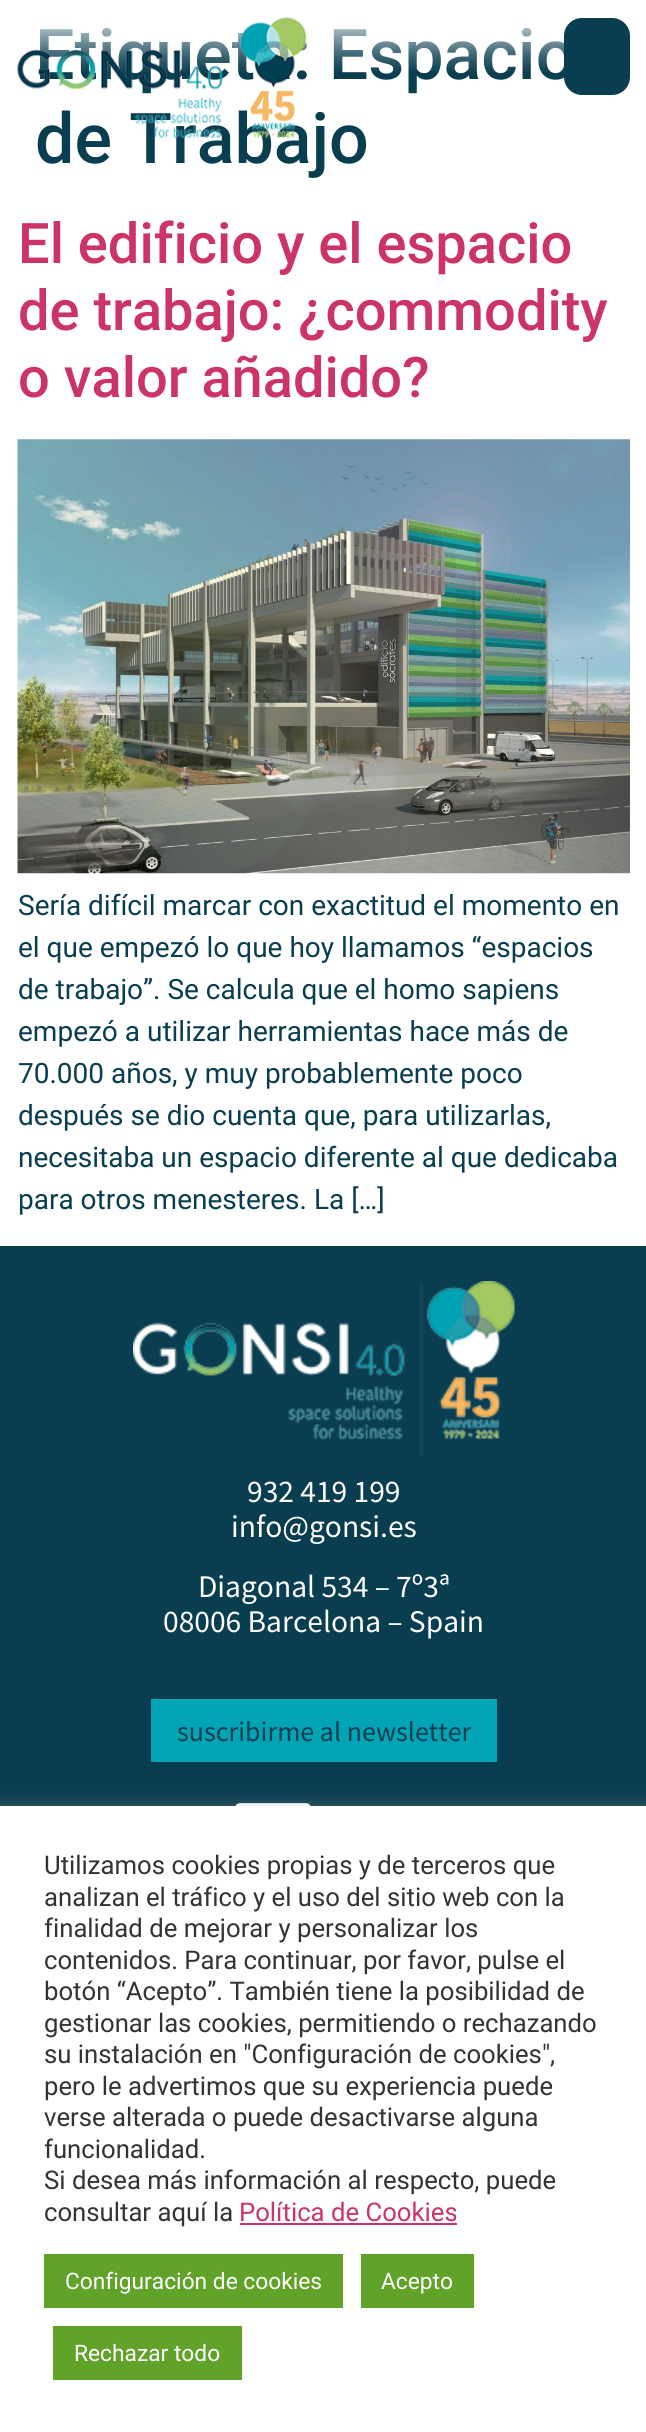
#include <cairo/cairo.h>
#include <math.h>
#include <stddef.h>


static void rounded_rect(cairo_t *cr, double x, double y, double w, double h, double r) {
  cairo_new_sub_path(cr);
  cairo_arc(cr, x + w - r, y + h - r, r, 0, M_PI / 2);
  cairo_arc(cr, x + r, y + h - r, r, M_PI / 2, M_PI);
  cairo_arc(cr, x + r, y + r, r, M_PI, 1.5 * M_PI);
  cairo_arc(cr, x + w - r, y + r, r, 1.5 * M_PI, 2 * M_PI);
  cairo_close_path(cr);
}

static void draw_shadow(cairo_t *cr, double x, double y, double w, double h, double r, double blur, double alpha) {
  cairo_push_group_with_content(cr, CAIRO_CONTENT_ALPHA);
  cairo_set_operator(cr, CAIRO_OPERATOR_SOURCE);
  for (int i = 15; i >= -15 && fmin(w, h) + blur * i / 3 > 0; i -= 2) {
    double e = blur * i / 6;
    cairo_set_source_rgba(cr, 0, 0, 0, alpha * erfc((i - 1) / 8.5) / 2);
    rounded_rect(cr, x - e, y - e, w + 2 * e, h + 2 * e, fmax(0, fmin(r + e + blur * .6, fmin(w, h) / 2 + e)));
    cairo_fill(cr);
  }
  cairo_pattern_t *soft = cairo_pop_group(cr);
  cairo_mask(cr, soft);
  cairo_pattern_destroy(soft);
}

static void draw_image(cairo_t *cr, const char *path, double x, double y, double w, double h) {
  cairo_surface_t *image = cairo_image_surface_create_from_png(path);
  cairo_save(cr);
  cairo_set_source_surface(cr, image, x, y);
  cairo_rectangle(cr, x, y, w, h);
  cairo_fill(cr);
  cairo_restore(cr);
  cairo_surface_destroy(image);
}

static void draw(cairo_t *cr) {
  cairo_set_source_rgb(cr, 1, 1, 1);
  cairo_paint(cr);
  draw_image(cr, "images/3.png", 17, 439, 613, 435);
  cairo_set_source_rgb(cr, 9 / 255.0, 61 / 255.0, 80 / 255.0);
  cairo_rectangle(cr, 0, 1246, 646, 560);
  cairo_fill(cr);
  draw_image(cr, "images/4.png", 133, 1281, 382, 175);
  cairo_set_source_rgb(cr, 0, 164 / 255.0, 180 / 255.0);
  cairo_rectangle(cr, 151, 1699, 346, 63);
  cairo_fill(cr);
  draw_image(cr, "images/5.png", 235, 1803, 76, 3);
  cairo_set_source_rgb(cr, 172 / 255.0, 171 / 255.0, 171 / 255.0);
  draw_shadow(cr, 0, 1804, 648, 627, 0, 9, 0.3);
  cairo_set_source_rgb(cr, 1, 1, 1);
  cairo_rectangle(cr, 0, 1806, 646, 626);
  cairo_fill(cr);
  cairo_set_source_rgb(cr, 204 / 255.0, 51 / 255.0, 102 / 255.0);
  cairo_rectangle(cr, 240, 2223, 217, 2);
  cairo_fill(cr);
  cairo_set_source_rgb(cr, 97 / 255.0, 162 / 255.0, 41 / 255.0);
  cairo_rectangle(cr, 44, 2254, 299, 54);
  cairo_fill(cr);
  cairo_rectangle(cr, 361, 2254, 113, 54);
  cairo_fill(cr);
  cairo_rectangle(cr, 53, 2326, 189, 54);
  cairo_fill(cr);
  cairo_select_font_face(cr, "Roboto Medium", CAIRO_FONT_SLANT_NORMAL, CAIRO_FONT_WEIGHT_NORMAL);
  cairo_set_font_size(cr, 70);
  cairo_set_source_rgb(cr, 9 / 255.0, 61 / 255.0, 80 / 255.0);
  cairo_move_to(cr, 35, 79);
  cairo_show_text(cr, "Etiqueta: Espacio");
  draw_image(cr, "images/1.png", 40, 27, 527, 45);
  rounded_rect(cr, 564, 18, 66, 77, 18);
  cairo_fill(cr);
  cairo_move_to(cr, 35, 163);
  cairo_show_text(cr, "de Trabajo");
  draw_image(cr, "images/2.png", 17, 17, 290, 122);
  cairo_set_font_size(cr, 56);
  cairo_set_source_rgb(cr, 204 / 255.0, 51 / 255.0, 102 / 255.0);
  cairo_move_to(cr, 18, 263);
  cairo_show_text(cr, "El edificio y el espacio");
  cairo_move_to(cr, 18, 330);
  cairo_show_text(cr, "de trabajo: ¿commodity");
  cairo_move_to(cr, 18, 397);
  cairo_show_text(cr, "o valor añadido?");
  cairo_select_font_face(cr, "Roboto", CAIRO_FONT_SLANT_NORMAL, CAIRO_FONT_WEIGHT_NORMAL);
  cairo_set_font_size(cr, 28);
  cairo_set_source_rgb(cr, 9 / 255.0, 61 / 255.0, 80 / 255.0);
  cairo_move_to(cr, 18, 915);
  cairo_show_text(cr, "Sería difícil marcar con exactitud el momento en");
  cairo_move_to(cr, 18, 957);
  cairo_show_text(cr, "el que empezó lo que hoy llamamos “espacios");
  cairo_move_to(cr, 18, 999);
  cairo_show_text(cr, "de trabajo”. Se calcula que el homo sapiens");
  cairo_move_to(cr, 18, 1041);
  cairo_show_text(cr, "empezó a utilizar herramientas hace más de");
  cairo_move_to(cr, 18, 1083);
  cairo_show_text(cr, "70.000 años, y muy probablemente poco");
  cairo_move_to(cr, 18, 1125);
  cairo_show_text(cr, "después se dio cuenta que, para utilizarlas,");
  cairo_move_to(cr, 18, 1167);
  cairo_show_text(cr, "necesitaba un espacio diferente al que dedicaba");
  cairo_move_to(cr, 18, 1209);
  cairo_show_text(cr, "para otros menesteres. La […]");
  cairo_select_font_face(cr, "Source Sans Pro", CAIRO_FONT_SLANT_NORMAL, CAIRO_FONT_WEIGHT_NORMAL);
  cairo_set_font_size(cr, 31.5);
  cairo_set_source_rgb(cr, 1, 1, 1);
  cairo_move_to(cr, 247, 1502);
  cairo_show_text(cr, "932 419 199");
  cairo_move_to(cr, 231, 1537);
  cairo_show_text(cr, "info@gonsi.es");
  cairo_move_to(cr, 198, 1597);
  cairo_show_text(cr, "Diagonal 534 – 7º3ª");
  cairo_move_to(cr, 163, 1632);
  cairo_show_text(cr, "08006 Barcelona – Spain");
  cairo_set_font_size(cr, 28);
  cairo_set_source_rgb(cr, 9 / 255.0, 61 / 255.0, 80 / 255.0);
  cairo_move_to(cr, 177, 1741);
  cairo_show_text(cr, "suscribirme al newsletter");
  cairo_select_font_face(cr, "Roboto", CAIRO_FONT_SLANT_NORMAL, CAIRO_FONT_WEIGHT_NORMAL);
  cairo_set_font_size(cr, 25.7);
  cairo_set_source_rgb(cr, 51 / 255.0, 51 / 255.0, 51 / 255.0);
  cairo_move_to(cr, 44, 1874);
  cairo_show_text(cr, "Utilizamos cookies propias y de terceros que");
  cairo_move_to(cr, 44, 1906);
  cairo_show_text(cr, "analizan el tráfico y el uso del sitio web con la");
  cairo_move_to(cr, 44, 1937);
  cairo_show_text(cr, "finalidad de mejorar y personalizar los");
  cairo_move_to(cr, 44, 1969);
  cairo_show_text(cr, "contenidos. Para continuar, por favor, pulse el");
  cairo_move_to(cr, 44, 2000);
  cairo_show_text(cr, "botón “Acepto”. También tiene la posibilidad de");
  cairo_move_to(cr, 44, 2032);
  cairo_show_text(cr, "gestionar las cookies, permitiendo o rechazando");
  cairo_move_to(cr, 44, 2063);
  cairo_show_text(cr, "su instalación en \"Configuración de cookies\",");
  cairo_move_to(cr, 44, 2095);
  cairo_show_text(cr, "pero le advertimos que su experiencia puede");
  cairo_move_to(cr, 44, 2126);
  cairo_show_text(cr, "verse alterada o puede desactivarse alguna");
  cairo_move_to(cr, 44, 2158);
  cairo_show_text(cr, "funcionalidad.");
  cairo_move_to(cr, 44, 2189);
  cairo_show_text(cr, "Si desea más información al respecto, puede");
  cairo_move_to(cr, 44, 2221);
  cairo_show_text(cr, "consultar aquí la");
  cairo_set_source_rgb(cr, 204 / 255.0, 51 / 255.0, 102 / 255.0);
  cairo_move_to(cr, 239, 2221);
  cairo_show_text(cr, "Política de Cookies");
  cairo_set_font_size(cr, 22.75);
  cairo_set_source_rgb(cr, 1, 1, 1);
  cairo_move_to(cr, 65, 2289);
  cairo_show_text(cr, "Configuración de cookies");
  cairo_move_to(cr, 381, 2289);
  cairo_show_text(cr, "Acepto");
  cairo_move_to(cr, 74, 2361);
  cairo_show_text(cr, "Rechazar todo");
}

int main(void) {
  cairo_surface_t *surface = cairo_image_surface_create(CAIRO_FORMAT_RGB24, 646, 2432);
  cairo_t *cr = cairo_create(surface);
  cairo_font_options_t *options = cairo_font_options_create();
  cairo_font_options_set_hint_metrics(options, CAIRO_HINT_METRICS_OFF);
  cairo_font_options_set_hint_style(options, CAIRO_HINT_STYLE_NONE);
  cairo_set_font_options(cr, options);
  cairo_set_miter_limit(cr, 4);
  draw(cr);
  cairo_surface_write_to_png(surface, "out.png");
  cairo_font_options_destroy(options);
  cairo_destroy(cr);
  cairo_surface_destroy(surface);
  return 0;
}
